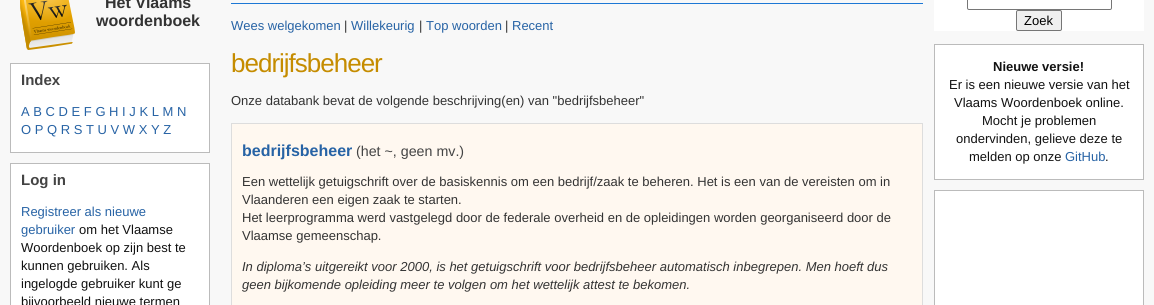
#include <cairo/cairo.h>
#include <math.h>
#include <stddef.h>


static void draw_spaced(cairo_t *cr, double x, double y, const char *s, double letter, double word) {
  cairo_move_to(cr, x, y);
  while (*s) {
    char ch[5] = {0};
    int n = 0;
    do ch[n++] = *s++; while ((*s & 0xC0) == 0x80);
    cairo_show_text(cr, ch);
    cairo_rel_move_to(cr, letter + word * (*ch == ' '), 0);
  }
}

static void rounded_rect(cairo_t *cr, double x, double y, double w, double h, double r) {
  cairo_new_sub_path(cr);
  cairo_arc(cr, x + w - r, y + h - r, r, 0, M_PI / 2);
  cairo_arc(cr, x + r, y + h - r, r, M_PI / 2, M_PI);
  cairo_arc(cr, x + r, y + r, r, M_PI, 1.5 * M_PI);
  cairo_arc(cr, x + w - r, y + r, r, 1.5 * M_PI, 2 * M_PI);
  cairo_close_path(cr);
}

static void draw_image(cairo_t *cr, const char *path, double x, double y, double w, double h) {
  cairo_surface_t *image = cairo_image_surface_create_from_png(path);
  cairo_save(cr);
  cairo_set_source_surface(cr, image, x, y);
  cairo_rectangle(cr, x, y, w, h);
  cairo_fill(cr);
  cairo_restore(cr);
  cairo_surface_destroy(image);
}

static void draw(cairo_t *cr) {
  cairo_set_source_rgb(cr, 248 / 255.0, 248 / 255.0, 248 / 255.0);
  cairo_paint(cr);
  draw_image(cr, "images/1.png", 20, 0, 55, 50);
  cairo_set_source_rgb(cr, 1, 1, 1);
  cairo_rectangle(cr, 10.5, 63.5, 199, 89);
  cairo_fill_preserve(cr);
  cairo_set_source_rgb(cr, 187 / 255.0, 187 / 255.0, 187 / 255.0);
  cairo_set_line_width(cr, 1);
  cairo_stroke(cr);
  cairo_set_source_rgb(cr, 1, 1, 1);
  cairo_rectangle(cr, 10.5, 163.5, 199, 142);
  cairo_fill_preserve(cr);
  cairo_set_source_rgb(cr, 187 / 255.0, 187 / 255.0, 187 / 255.0);
  cairo_stroke(cr);
  cairo_set_source_rgb(cr, 29 / 255.0, 120 / 255.0, 213 / 255.0);
  cairo_rectangle(cr, 231, 3, 692, 1);
  cairo_fill(cr);
  cairo_set_source_rgb(cr, 1, 248 / 255.0, 240 / 255.0);
  cairo_rectangle(cr, 231.5, 123.5, 691, 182);
  cairo_fill_preserve(cr);
  cairo_set_source_rgb(cr, 221 / 255.0, 221 / 255.0, 221 / 255.0);
  cairo_stroke(cr);
  cairo_set_source_rgb(cr, 1, 1, 1);
  cairo_rectangle(cr, 934, 0, 210, 31);
  cairo_fill(cr);
  rounded_rect(cr, 967.5, -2.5, 144, 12, 1.5);
  cairo_set_source_rgb(cr, 118 / 255.0, 118 / 255.0, 118 / 255.0);
  cairo_stroke(cr);
  cairo_set_source_rgb(cr, 239 / 255.0, 239 / 255.0, 239 / 255.0);
  rounded_rect(cr, 1016.5, 10.5, 45, 20, 1.5);
  cairo_fill_preserve(cr);
  cairo_set_source_rgb(cr, 118 / 255.0, 118 / 255.0, 118 / 255.0);
  cairo_stroke(cr);
  cairo_set_source_rgb(cr, 1, 1, 1);
  cairo_rectangle(cr, 934.5, 44.5, 209, 135);
  cairo_fill_preserve(cr);
  cairo_set_source_rgb(cr, 187 / 255.0, 187 / 255.0, 187 / 255.0);
  cairo_stroke(cr);
  cairo_set_source_rgb(cr, 1, 1, 1);
  cairo_rectangle(cr, 934.5, 190.5, 209, 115);
  cairo_fill_preserve(cr);
  cairo_set_source_rgb(cr, 187 / 255.0, 187 / 255.0, 187 / 255.0);
  cairo_stroke(cr);
  cairo_select_font_face(cr, "Liberation Sans", CAIRO_FONT_SLANT_NORMAL, CAIRO_FONT_WEIGHT_BOLD);
  cairo_set_font_size(cr, 16);
  cairo_set_source_rgb(cr, 51 / 255.0, 51 / 255.0, 51 / 255.0);
  cairo_move_to(cr, 105, 8);
  cairo_show_text(cr, "Het Vlaams");
  cairo_move_to(cr, 96, 26);
  cairo_show_text(cr, "woordenboek");
  cairo_set_font_size(cr, 15);
  cairo_set_source_rgb(cr, 68 / 255.0, 68 / 255.0, 68 / 255.0);
  cairo_move_to(cr, 21, 85);
  cairo_show_text(cr, "Index");
  cairo_select_font_face(cr, "Liberation Sans", CAIRO_FONT_SLANT_NORMAL, CAIRO_FONT_WEIGHT_NORMAL);
  cairo_set_font_size(cr, 13);
  cairo_set_source_rgb(cr, 39 / 255.0, 99 / 255.0, 165 / 255.0);
  cairo_move_to(cr, 21, 116);
  cairo_show_text(cr, "A B C D E F G H I J K L M N");
  cairo_move_to(cr, 21, 134);
  cairo_show_text(cr, "O P Q R S T U V W X Y Z");
  cairo_select_font_face(cr, "Liberation Sans", CAIRO_FONT_SLANT_NORMAL, CAIRO_FONT_WEIGHT_BOLD);
  cairo_set_font_size(cr, 15);
  cairo_set_source_rgb(cr, 68 / 255.0, 68 / 255.0, 68 / 255.0);
  cairo_move_to(cr, 21, 185);
  cairo_show_text(cr, "Log in");
  cairo_select_font_face(cr, "Liberation Sans", CAIRO_FONT_SLANT_NORMAL, CAIRO_FONT_WEIGHT_NORMAL);
  cairo_set_font_size(cr, 13);
  cairo_set_source_rgb(cr, 39 / 255.0, 99 / 255.0, 165 / 255.0);
  cairo_move_to(cr, 21, 216);
  cairo_show_text(cr, "Registreer als nieuwe");
  cairo_move_to(cr, 21, 234);
  cairo_show_text(cr, "gebruiker");
  cairo_set_source_rgb(cr, 17 / 255.0, 17 / 255.0, 17 / 255.0);
  cairo_move_to(cr, 79, 234);
  cairo_show_text(cr, "om het Vlaamse");
  cairo_move_to(cr, 21, 252);
  cairo_show_text(cr, "Woordenboek op zijn best te");
  cairo_move_to(cr, 21, 270);
  cairo_show_text(cr, "kunnen gebruiken. Als");
  cairo_move_to(cr, 21, 288);
  cairo_show_text(cr, "ingelogde gebruiker kunt ge");
  cairo_move_to(cr, 21, 306);
  cairo_show_text(cr, "bijvoorbeeld nieuwe termen");
  cairo_set_source_rgb(cr, 39 / 255.0, 99 / 255.0, 165 / 255.0);
  cairo_move_to(cr, 231, 30);
  cairo_show_text(cr, "Wees welgekomen");
  cairo_set_source_rgb(cr, 51 / 255.0, 51 / 255.0, 51 / 255.0);
  cairo_move_to(cr, 344, 30);
  cairo_show_text(cr, "|");
  cairo_set_source_rgb(cr, 39 / 255.0, 99 / 255.0, 165 / 255.0);
  cairo_move_to(cr, 351, 30);
  cairo_show_text(cr, "Willekeurig");
  cairo_set_source_rgb(cr, 51 / 255.0, 51 / 255.0, 51 / 255.0);
  cairo_move_to(cr, 419, 30);
  cairo_show_text(cr, "|");
  cairo_set_source_rgb(cr, 39 / 255.0, 99 / 255.0, 165 / 255.0);
  cairo_move_to(cr, 426, 30);
  cairo_show_text(cr, "Top woorden");
  cairo_set_source_rgb(cr, 51 / 255.0, 51 / 255.0, 51 / 255.0);
  cairo_move_to(cr, 505, 30);
  cairo_show_text(cr, "|");
  cairo_set_source_rgb(cr, 39 / 255.0, 99 / 255.0, 165 / 255.0);
  cairo_move_to(cr, 512, 30);
  cairo_show_text(cr, "Recent");
  cairo_set_font_size(cr, 26);
  cairo_set_source_rgb(cr, 197 / 255.0, 140 / 255.0, 0);
  draw_spaced(cr, 231, 72, "bedrijfsbeheer", -1, 0);
  cairo_set_font_size(cr, 13);
  cairo_set_source_rgb(cr, 51 / 255.0, 51 / 255.0, 51 / 255.0);
  cairo_move_to(cr, 231, 105);
  cairo_show_text(cr, "Onze databank bevat de volgende beschrijving(en) van \"bedrijfsbeheer\"");
  cairo_select_font_face(cr, "Liberation Sans", CAIRO_FONT_SLANT_NORMAL, CAIRO_FONT_WEIGHT_BOLD);
  cairo_set_font_size(cr, 16);
  cairo_set_source_rgb(cr, 39 / 255.0, 99 / 255.0, 165 / 255.0);
  cairo_move_to(cr, 242, 156);
  cairo_show_text(cr, "bedrijfsbeheer");
  cairo_select_font_face(cr, "Liberation Sans", CAIRO_FONT_SLANT_NORMAL, CAIRO_FONT_WEIGHT_NORMAL);
  cairo_set_font_size(cr, 14.25);
  cairo_set_source_rgb(cr, 68 / 255.0, 68 / 255.0, 68 / 255.0);
  cairo_move_to(cr, 356, 156);
  cairo_show_text(cr, "(het ~, geen mv.)");
  cairo_set_font_size(cr, 13);
  cairo_set_source_rgb(cr, 51 / 255.0, 51 / 255.0, 51 / 255.0);
  cairo_move_to(cr, 242, 186);
  cairo_show_text(cr, "Een wettelijk getuigschrift over de basiskennis om een bedrijf/zaak te beheren. Het is een van de vereisten om in");
  cairo_move_to(cr, 242, 204);
  cairo_show_text(cr, "Vlaanderen een eigen zaak te starten.");
  cairo_move_to(cr, 242, 222);
  cairo_show_text(cr, "Het leerprogramma werd vastgelegd door de federale overheid en de opleidingen worden georganiseerd door de");
  cairo_move_to(cr, 242, 240);
  cairo_show_text(cr, "Vlaamse gemeenschap.");
  cairo_select_font_face(cr, "Liberation Sans", CAIRO_FONT_SLANT_ITALIC, CAIRO_FONT_WEIGHT_NORMAL);
  cairo_move_to(cr, 242, 271);
  cairo_show_text(cr, "In diploma’s uitgereikt voor 2000, is het getuigschrift voor bedrijfsbeheer automatisch inbegrepen. Men hoeft dus");
  cairo_move_to(cr, 242, 289);
  cairo_show_text(cr, "geen bijkomende opleiding meer te volgen om het wettelijk attest te bekomen.");
  cairo_select_font_face(cr, "Liberation Sans", CAIRO_FONT_SLANT_NORMAL, CAIRO_FONT_WEIGHT_NORMAL);
  cairo_set_source_rgb(cr, 0, 0, 0);
  cairo_move_to(cr, 1024, 25);
  cairo_show_text(cr, "Zoek");
  cairo_select_font_face(cr, "Liberation Sans", CAIRO_FONT_SLANT_NORMAL, CAIRO_FONT_WEIGHT_BOLD);
  cairo_set_source_rgb(cr, 17 / 255.0, 17 / 255.0, 17 / 255.0);
  cairo_move_to(cr, 993, 71);
  cairo_show_text(cr, "Nieuwe versie!");
  cairo_select_font_face(cr, "Liberation Sans", CAIRO_FONT_SLANT_NORMAL, CAIRO_FONT_WEIGHT_NORMAL);
  cairo_move_to(cr, 949, 89);
  cairo_show_text(cr, "Er is een nieuwe versie van het");
  cairo_move_to(cr, 954, 107);
  cairo_show_text(cr, "Vlaams Woordenboek online.");
  cairo_move_to(cr, 982, 125);
  cairo_show_text(cr, "Mocht je problemen");
  cairo_move_to(cr, 956, 143);
  cairo_show_text(cr, "ondervinden, gelieve deze te");
  cairo_move_to(cr, 969, 161);
  cairo_show_text(cr, "melden op onze");
  cairo_set_source_rgb(cr, 39 / 255.0, 99 / 255.0, 165 / 255.0);
  cairo_move_to(cr, 1065, 161);
  cairo_show_text(cr, "GitHub");
  cairo_set_source_rgb(cr, 17 / 255.0, 17 / 255.0, 17 / 255.0);
  cairo_move_to(cr, 1105, 161);
  cairo_show_text(cr, ".");
}

int main(void) {
  cairo_surface_t *surface = cairo_image_surface_create(CAIRO_FORMAT_RGB24, 1154, 305);
  cairo_t *cr = cairo_create(surface);
  cairo_font_options_t *options = cairo_font_options_create();
  cairo_font_options_set_hint_metrics(options, CAIRO_HINT_METRICS_OFF);
  cairo_font_options_set_hint_style(options, CAIRO_HINT_STYLE_NONE);
  cairo_set_font_options(cr, options);
  cairo_set_miter_limit(cr, 4);
  draw(cr);
  cairo_surface_write_to_png(surface, "out.png");
  cairo_font_options_destroy(options);
  cairo_destroy(cr);
  cairo_surface_destroy(surface);
  return 0;
}
